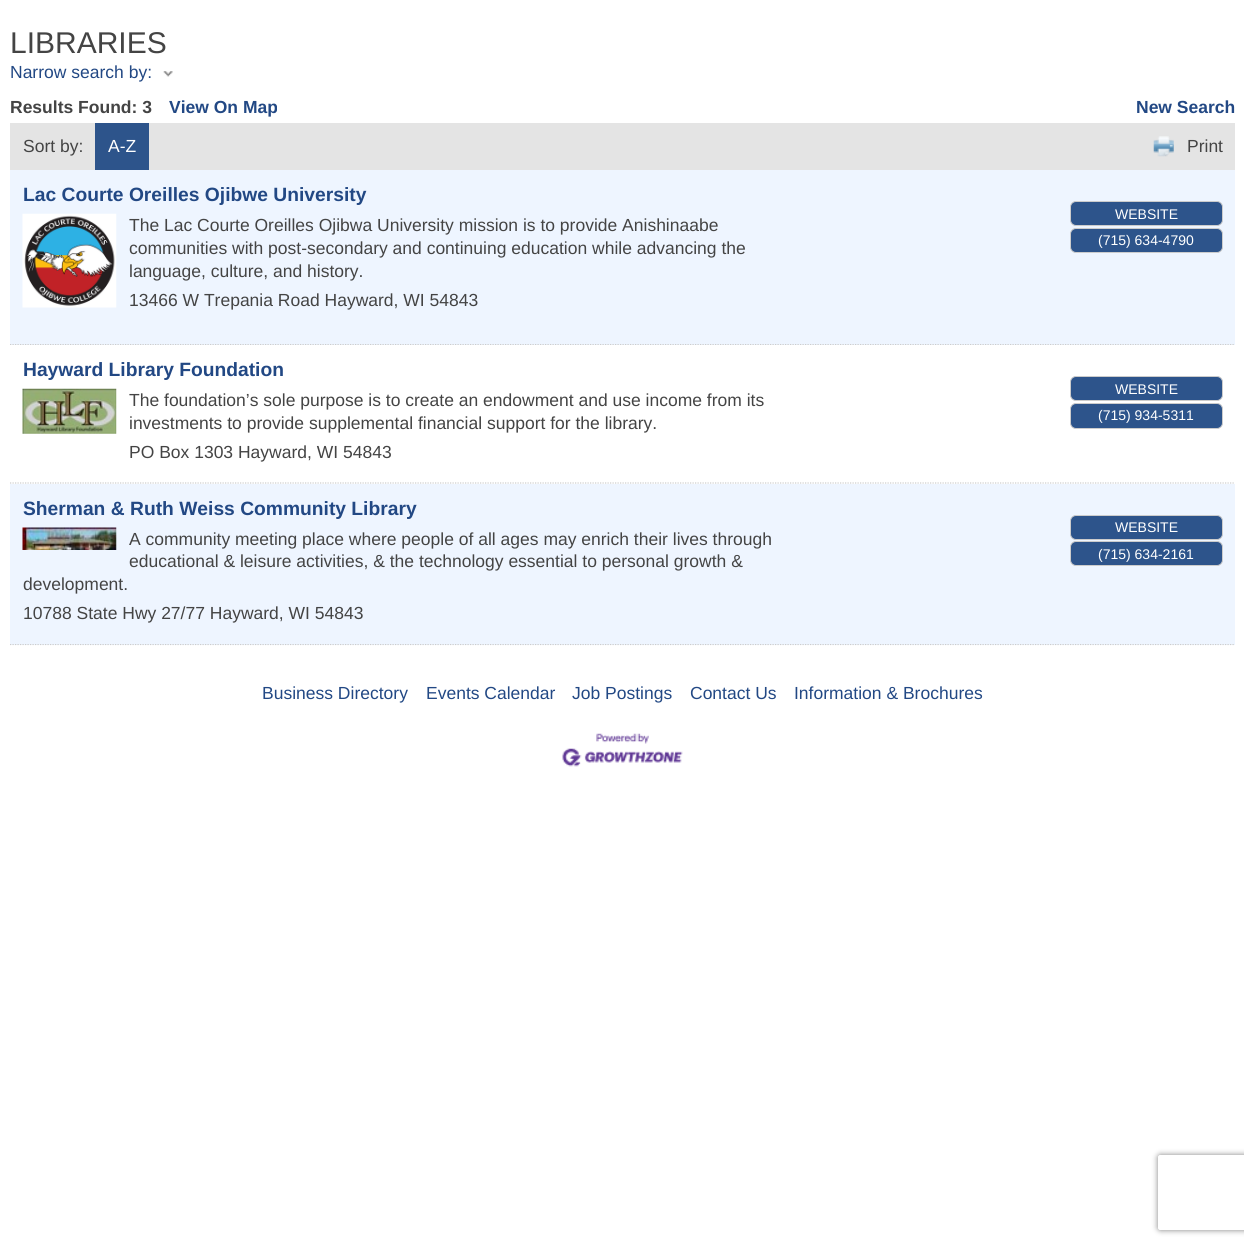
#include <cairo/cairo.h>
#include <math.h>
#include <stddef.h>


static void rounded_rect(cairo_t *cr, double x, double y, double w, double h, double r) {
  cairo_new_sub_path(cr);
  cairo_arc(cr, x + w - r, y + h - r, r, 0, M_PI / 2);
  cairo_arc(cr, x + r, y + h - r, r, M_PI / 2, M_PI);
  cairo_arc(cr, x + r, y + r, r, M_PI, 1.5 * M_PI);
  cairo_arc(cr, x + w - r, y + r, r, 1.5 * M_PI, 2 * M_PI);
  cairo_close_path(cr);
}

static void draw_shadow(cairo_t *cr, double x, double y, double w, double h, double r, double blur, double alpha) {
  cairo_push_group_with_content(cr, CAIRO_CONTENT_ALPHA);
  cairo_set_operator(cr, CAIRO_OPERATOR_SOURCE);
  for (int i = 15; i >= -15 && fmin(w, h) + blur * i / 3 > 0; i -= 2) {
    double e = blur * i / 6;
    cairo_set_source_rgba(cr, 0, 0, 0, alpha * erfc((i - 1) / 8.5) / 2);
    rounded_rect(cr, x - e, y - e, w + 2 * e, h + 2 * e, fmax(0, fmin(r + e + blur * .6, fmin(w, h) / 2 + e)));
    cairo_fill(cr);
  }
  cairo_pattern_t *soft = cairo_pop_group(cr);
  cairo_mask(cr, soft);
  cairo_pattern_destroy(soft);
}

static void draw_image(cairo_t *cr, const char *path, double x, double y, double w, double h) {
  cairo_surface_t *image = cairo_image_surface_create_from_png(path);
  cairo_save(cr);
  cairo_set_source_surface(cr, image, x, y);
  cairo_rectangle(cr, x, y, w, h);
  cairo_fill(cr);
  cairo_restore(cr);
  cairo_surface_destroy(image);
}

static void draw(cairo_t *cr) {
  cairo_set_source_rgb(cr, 1, 1, 1);
  cairo_paint(cr);
  draw_image(cr, "images/1.png", 163, 71, 10, 6);
  cairo_set_source_rgb(cr, 228 / 255.0, 228 / 255.0, 228 / 255.0);
  cairo_rectangle(cr, 10, 123, 1225, 47);
  cairo_fill(cr);
  cairo_set_source_rgb(cr, 45 / 255.0, 84 / 255.0, 139 / 255.0);
  cairo_rectangle(cr, 95, 123, 54, 47);
  cairo_fill(cr);
  draw_image(cr, "images/2.png", 1153, 136, 21, 21);
  cairo_set_source_rgb(cr, 238 / 255.0, 245 / 255.0, 1);
  cairo_rectangle(cr, 11, 344, 1224, 1);
  cairo_fill(cr);
  cairo_new_path(cr);
  cairo_move_to(cr, 10, 344.5);
  cairo_line_to(cr, 1235, 344.5);
  cairo_set_source_rgb(cr, 204 / 255.0, 204 / 255.0, 204 / 255.0);
  cairo_set_line_width(cr, 1.2);
  cairo_set_dash(cr, (double[]){1.25, 1.25}, 2, 0);
  cairo_stroke(cr);
  cairo_set_source_rgb(cr, 238 / 255.0, 245 / 255.0, 1);
  cairo_rectangle(cr, 10, 170, 1225, 174);
  cairo_fill(cr);
  draw_image(cr, "images/3.png", 22, 213, 95, 95);
  cairo_set_source_rgb(cr, 45 / 255.0, 84 / 255.0, 139 / 255.0);
  rounded_rect(cr, 1070.5, 201.5, 152, 24, 5.5);
  cairo_fill_preserve(cr);
  cairo_set_source_rgb(cr, 204 / 255.0, 204 / 255.0, 204 / 255.0);
  cairo_set_line_width(cr, 1);
  cairo_set_dash(cr, NULL, 0, 0);
  cairo_stroke(cr);
  cairo_set_source_rgb(cr, 45 / 255.0, 84 / 255.0, 139 / 255.0);
  rounded_rect(cr, 1070.5, 228.5, 152, 24, 5.5);
  cairo_fill_preserve(cr);
  cairo_set_source_rgb(cr, 204 / 255.0, 204 / 255.0, 204 / 255.0);
  cairo_stroke(cr);
  cairo_set_source_rgb(cr, 1, 1, 1);
  cairo_rectangle(cr, 10, 345, 1224, 1);
  cairo_fill(cr);
  cairo_new_path(cr);
  cairo_move_to(cr, 10, 483);
  cairo_line_to(cr, 1235, 483);
  cairo_set_source_rgb(cr, 204 / 255.0, 204 / 255.0, 204 / 255.0);
  cairo_set_line_width(cr, 1.2);
  cairo_set_dash(cr, (double[]){1.25, 1.25}, 2, 0);
  cairo_stroke(cr);
  draw_image(cr, "images/4.png", 22, 388, 95, 46);
  cairo_set_source_rgb(cr, 45 / 255.0, 84 / 255.0, 139 / 255.0);
  rounded_rect(cr, 1070.5, 376.5, 152, 24, 5.5);
  cairo_fill_preserve(cr);
  cairo_set_source_rgb(cr, 204 / 255.0, 204 / 255.0, 204 / 255.0);
  cairo_set_line_width(cr, 1);
  cairo_set_dash(cr, NULL, 0, 0);
  cairo_stroke(cr);
  cairo_set_source_rgb(cr, 45 / 255.0, 84 / 255.0, 139 / 255.0);
  rounded_rect(cr, 1070.5, 403.5, 152, 25, 5.5);
  cairo_fill_preserve(cr);
  cairo_set_source_rgb(cr, 204 / 255.0, 204 / 255.0, 204 / 255.0);
  cairo_stroke(cr);
  cairo_set_source_rgb(cr, 238 / 255.0, 245 / 255.0, 1);
  cairo_rectangle(cr, 11, 644, 1224, 1);
  cairo_fill(cr);
  cairo_new_path(cr);
  cairo_move_to(cr, 10, 644.5);
  cairo_line_to(cr, 1235, 644.5);
  cairo_set_source_rgb(cr, 204 / 255.0, 204 / 255.0, 204 / 255.0);
  cairo_set_line_width(cr, 1.2);
  cairo_set_dash(cr, (double[]){1.25, 1.25}, 2, 0);
  cairo_stroke(cr);
  cairo_set_source_rgb(cr, 238 / 255.0, 245 / 255.0, 1);
  cairo_rectangle(cr, 10, 484, 1225, 160);
  cairo_fill(cr);
  draw_image(cr, "images/5.png", 22, 527, 95, 23);
  cairo_set_source_rgb(cr, 45 / 255.0, 84 / 255.0, 139 / 255.0);
  rounded_rect(cr, 1070.5, 515.5, 152, 24, 5.5);
  cairo_fill_preserve(cr);
  cairo_set_source_rgb(cr, 204 / 255.0, 204 / 255.0, 204 / 255.0);
  cairo_set_line_width(cr, 1);
  cairo_set_dash(cr, NULL, 0, 0);
  cairo_stroke(cr);
  cairo_set_source_rgb(cr, 45 / 255.0, 84 / 255.0, 139 / 255.0);
  rounded_rect(cr, 1070.5, 541.5, 152, 24, 5.5);
  cairo_fill_preserve(cr);
  cairo_set_source_rgb(cr, 204 / 255.0, 204 / 255.0, 204 / 255.0);
  cairo_stroke(cr);
  draw_image(cr, "images/6.png", 562, 733, 121, 34);
  cairo_save(cr);
  cairo_set_fill_rule(cr, CAIRO_FILL_RULE_EVEN_ODD);
  cairo_new_path(cr);
  cairo_move_to(cr, 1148, 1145);
  cairo_line_to(cr, 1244, 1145);
  cairo_line_to(cr, 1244, 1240);
  cairo_line_to(cr, 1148, 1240);
  cairo_close_path(cr);
  cairo_move_to(cr, 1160.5, 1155);
  cairo_line_to(cr, 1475.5, 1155);
  cairo_curve_to(cr, 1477, 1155, 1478, 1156, 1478, 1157.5);
  cairo_line_to(cr, 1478, 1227.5);
  cairo_curve_to(cr, 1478, 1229, 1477, 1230, 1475.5, 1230);
  cairo_line_to(cr, 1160.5, 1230);
  cairo_curve_to(cr, 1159, 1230, 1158, 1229, 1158, 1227.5);
  cairo_line_to(cr, 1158, 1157.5);
  cairo_curve_to(cr, 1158, 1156, 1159, 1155, 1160.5, 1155);
  cairo_close_path(cr);
  cairo_clip(cr);
  cairo_set_source_rgb(cr, 128 / 255.0, 128 / 255.0, 128 / 255.0);
  draw_shadow(cr, 1158, 1155, 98, 75, 2.5, 3, 1);
  cairo_restore(cr);
  cairo_select_font_face(cr, "Liberation Sans", CAIRO_FONT_SLANT_NORMAL, CAIRO_FONT_WEIGHT_NORMAL);
  cairo_set_font_size(cr, 30);
  cairo_set_source_rgb(cr, 68 / 255.0, 68 / 255.0, 68 / 255.0);
  cairo_move_to(cr, 10, 53);
  cairo_show_text(cr, "LIBRARIES");
  cairo_set_font_size(cr, 17.5);
  cairo_set_source_rgb(cr, 34 / 255.0, 72 / 255.0, 132 / 255.0);
  cairo_move_to(cr, 10, 78);
  cairo_show_text(cr, "Narrow search by:");
  cairo_select_font_face(cr, "Liberation Sans", CAIRO_FONT_SLANT_NORMAL, CAIRO_FONT_WEIGHT_BOLD);
  cairo_set_source_rgb(cr, 68 / 255.0, 68 / 255.0, 68 / 255.0);
  cairo_move_to(cr, 10, 113);
  cairo_show_text(cr, "Results Found: 3");
  cairo_set_source_rgb(cr, 34 / 255.0, 72 / 255.0, 132 / 255.0);
  cairo_move_to(cr, 169, 113);
  cairo_show_text(cr, "View On Map");
  cairo_move_to(cr, 1136, 113);
  cairo_show_text(cr, "New Search");
  cairo_select_font_face(cr, "Liberation Sans", CAIRO_FONT_SLANT_NORMAL, CAIRO_FONT_WEIGHT_NORMAL);
  cairo_set_source_rgb(cr, 68 / 255.0, 68 / 255.0, 68 / 255.0);
  cairo_move_to(cr, 23, 152);
  cairo_show_text(cr, "Sort by:");
  cairo_set_source_rgb(cr, 1, 1, 1);
  cairo_move_to(cr, 108, 152);
  cairo_show_text(cr, "A-Z");
  cairo_set_source_rgb(cr, 68 / 255.0, 68 / 255.0, 68 / 255.0);
  cairo_move_to(cr, 1187, 152);
  cairo_show_text(cr, "Print");
  cairo_select_font_face(cr, "Liberation Sans", CAIRO_FONT_SLANT_NORMAL, CAIRO_FONT_WEIGHT_BOLD);
  cairo_set_font_size(cr, 19.25);
  cairo_set_source_rgb(cr, 34 / 255.0, 72 / 255.0, 132 / 255.0);
  cairo_move_to(cr, 23, 201);
  cairo_show_text(cr, "Lac Courte Oreilles Ojibwe University");
  cairo_select_font_face(cr, "Liberation Sans", CAIRO_FONT_SLANT_NORMAL, CAIRO_FONT_WEIGHT_NORMAL);
  cairo_set_font_size(cr, 17.5);
  cairo_set_source_rgb(cr, 68 / 255.0, 68 / 255.0, 68 / 255.0);
  cairo_move_to(cr, 129, 231);
  cairo_show_text(cr, "The Lac Courte Oreilles Ojibwa University mission is to provide Anishinaabe");
  cairo_move_to(cr, 129, 254);
  cairo_show_text(cr, "communities with post-secondary and continuing education while advancing the");
  cairo_move_to(cr, 129, 277);
  cairo_show_text(cr, "language, culture, and history.");
  cairo_move_to(cr, 129, 306);
  cairo_show_text(cr, "13466 W Trepania Road Hayward, WI 54843");
  cairo_set_font_size(cr, 14);
  cairo_set_source_rgb(cr, 1, 1, 1);
  cairo_move_to(cr, 1115, 219);
  cairo_show_text(cr, "WEBSITE");
  cairo_move_to(cr, 1098, 245);
  cairo_show_text(cr, "(715) 634-4790");
  cairo_select_font_face(cr, "Liberation Sans", CAIRO_FONT_SLANT_NORMAL, CAIRO_FONT_WEIGHT_BOLD);
  cairo_set_font_size(cr, 19.25);
  cairo_set_source_rgb(cr, 34 / 255.0, 72 / 255.0, 132 / 255.0);
  cairo_move_to(cr, 23, 376);
  cairo_show_text(cr, "Hayward Library Foundation");
  cairo_select_font_face(cr, "Liberation Sans", CAIRO_FONT_SLANT_NORMAL, CAIRO_FONT_WEIGHT_NORMAL);
  cairo_set_font_size(cr, 17.5);
  cairo_set_source_rgb(cr, 68 / 255.0, 68 / 255.0, 68 / 255.0);
  cairo_move_to(cr, 129, 406);
  cairo_show_text(cr, "The foundation’s sole purpose is to create an endowment and use income from its");
  cairo_move_to(cr, 129, 429);
  cairo_show_text(cr, "investments to provide supplemental financial support for the library.");
  cairo_move_to(cr, 129, 458);
  cairo_show_text(cr, "PO Box 1303 Hayward, WI 54843");
  cairo_set_font_size(cr, 14);
  cairo_set_source_rgb(cr, 1, 1, 1);
  cairo_move_to(cr, 1115, 394);
  cairo_show_text(cr, "WEBSITE");
  cairo_move_to(cr, 1098, 420);
  cairo_show_text(cr, "(715) 934-5311");
  cairo_select_font_face(cr, "Liberation Sans", CAIRO_FONT_SLANT_NORMAL, CAIRO_FONT_WEIGHT_BOLD);
  cairo_set_font_size(cr, 19.25);
  cairo_set_source_rgb(cr, 34 / 255.0, 72 / 255.0, 132 / 255.0);
  cairo_move_to(cr, 23, 515);
  cairo_show_text(cr, "Sherman & Ruth Weiss Community Library");
  cairo_select_font_face(cr, "Liberation Sans", CAIRO_FONT_SLANT_NORMAL, CAIRO_FONT_WEIGHT_NORMAL);
  cairo_set_font_size(cr, 17.5);
  cairo_set_source_rgb(cr, 68 / 255.0, 68 / 255.0, 68 / 255.0);
  cairo_move_to(cr, 129, 545);
  cairo_show_text(cr, "A community meeting place where people of all ages may enrich their lives through");
  cairo_move_to(cr, 129, 567);
  cairo_show_text(cr, "educational & leisure activities, & the technology essential to personal growth &");
  cairo_move_to(cr, 23, 590);
  cairo_show_text(cr, "development.");
  cairo_move_to(cr, 23, 619);
  cairo_show_text(cr, "10788 State Hwy 27/77 Hayward, WI 54843");
  cairo_set_font_size(cr, 14);
  cairo_set_source_rgb(cr, 1, 1, 1);
  cairo_move_to(cr, 1115, 532);
  cairo_show_text(cr, "WEBSITE");
  cairo_move_to(cr, 1098, 559);
  cairo_show_text(cr, "(715) 634-2161");
  cairo_set_font_size(cr, 17.5);
  cairo_set_source_rgb(cr, 34 / 255.0, 72 / 255.0, 132 / 255.0);
  cairo_move_to(cr, 262, 699);
  cairo_show_text(cr, "Business Directory");
  cairo_move_to(cr, 426, 699);
  cairo_show_text(cr, "Events Calendar");
  cairo_move_to(cr, 572, 699);
  cairo_show_text(cr, "Job Postings");
  cairo_move_to(cr, 690, 699);
  cairo_show_text(cr, "Contact Us");
  cairo_move_to(cr, 794, 699);
  cairo_show_text(cr, "Information & Brochures");
}

int main(void) {
  cairo_surface_t *surface = cairo_image_surface_create(CAIRO_FORMAT_RGB24, 1244, 1247);
  cairo_t *cr = cairo_create(surface);
  cairo_font_options_t *options = cairo_font_options_create();
  cairo_font_options_set_hint_metrics(options, CAIRO_HINT_METRICS_OFF);
  cairo_font_options_set_hint_style(options, CAIRO_HINT_STYLE_NONE);
  cairo_set_font_options(cr, options);
  cairo_set_miter_limit(cr, 4);
  draw(cr);
  cairo_surface_write_to_png(surface, "out.png");
  cairo_font_options_destroy(options);
  cairo_destroy(cr);
  cairo_surface_destroy(surface);
  return 0;
}
